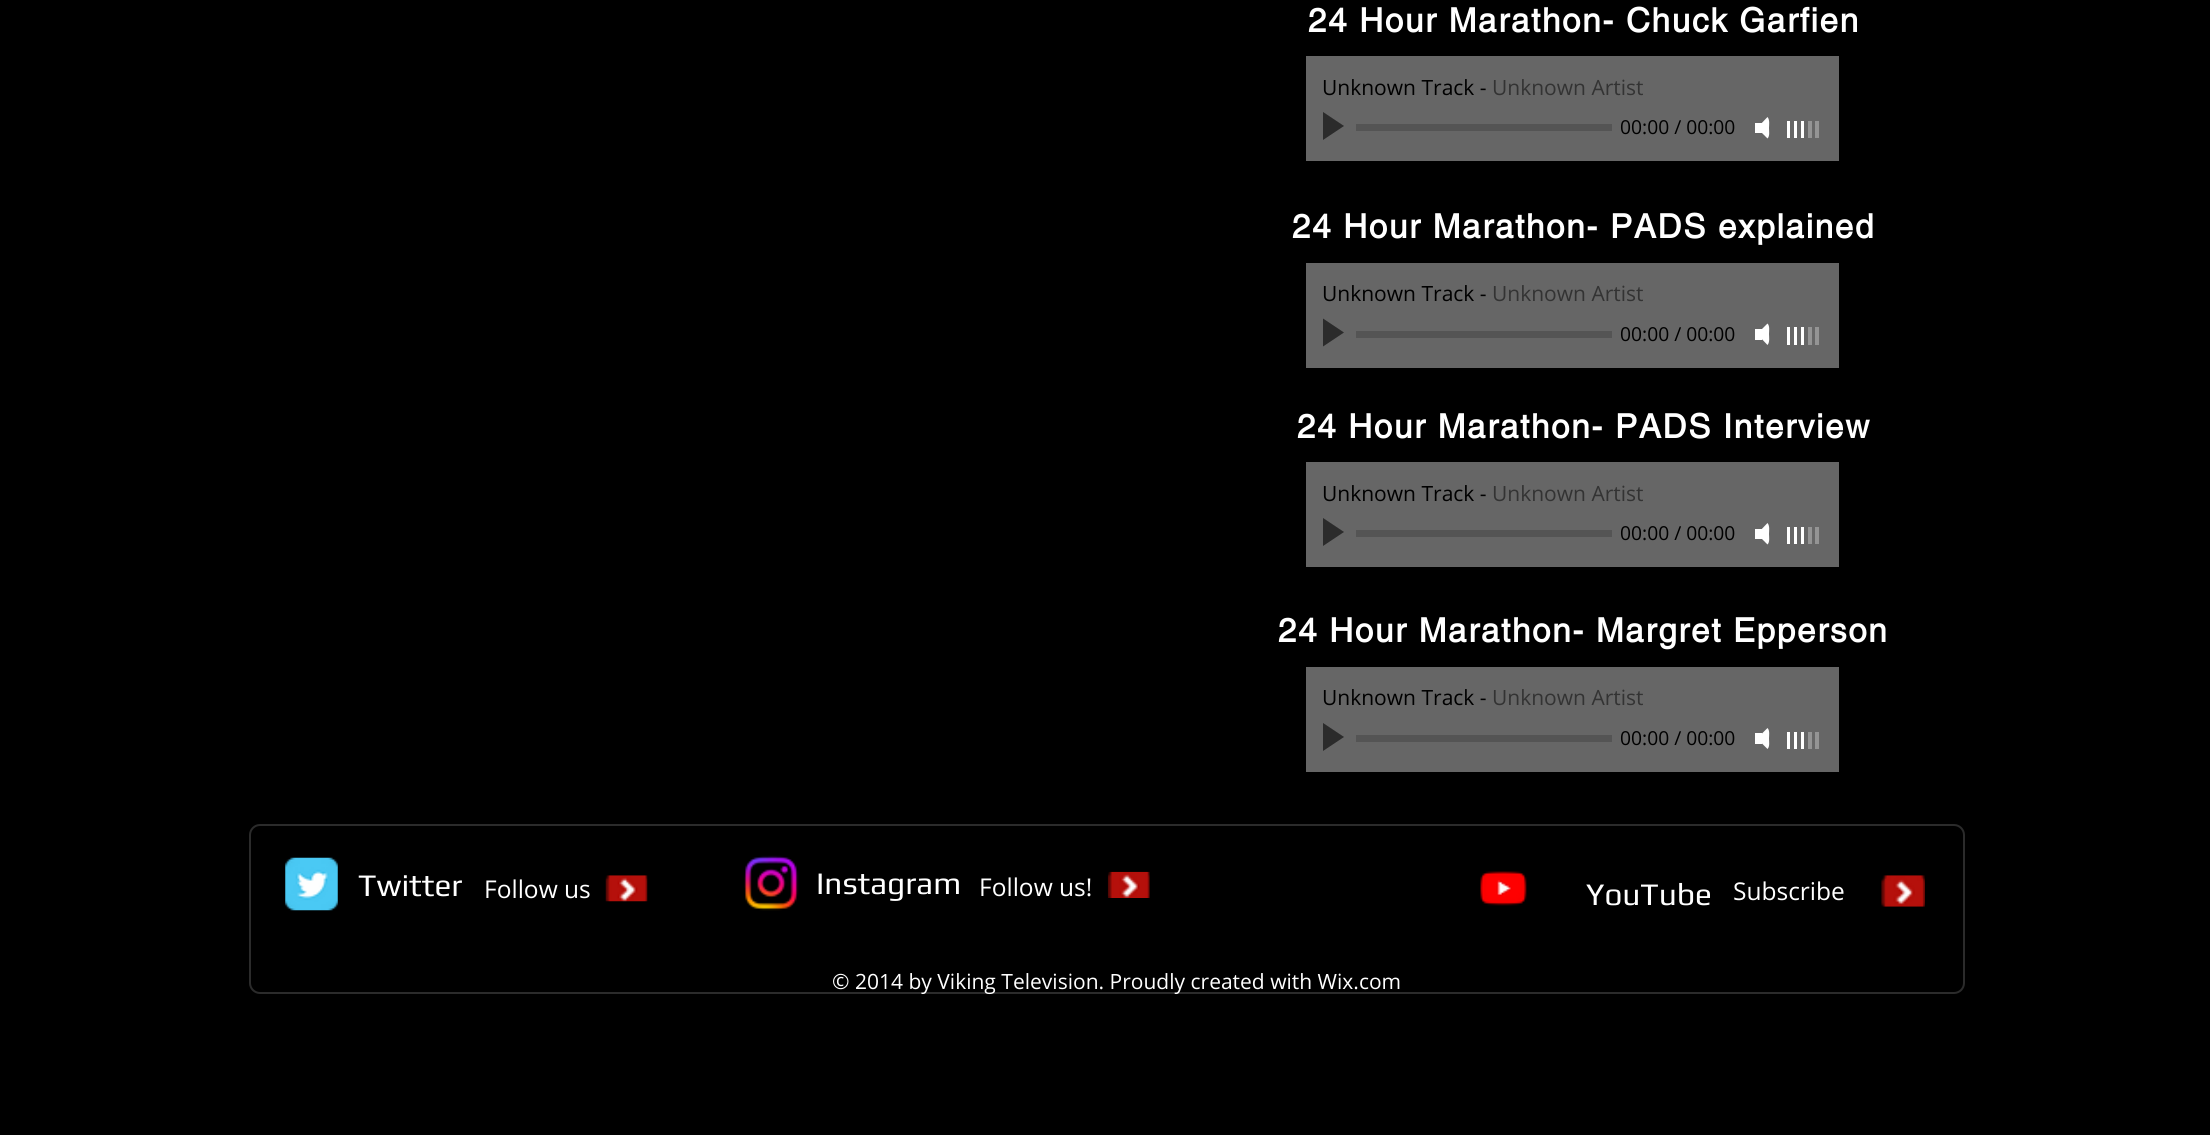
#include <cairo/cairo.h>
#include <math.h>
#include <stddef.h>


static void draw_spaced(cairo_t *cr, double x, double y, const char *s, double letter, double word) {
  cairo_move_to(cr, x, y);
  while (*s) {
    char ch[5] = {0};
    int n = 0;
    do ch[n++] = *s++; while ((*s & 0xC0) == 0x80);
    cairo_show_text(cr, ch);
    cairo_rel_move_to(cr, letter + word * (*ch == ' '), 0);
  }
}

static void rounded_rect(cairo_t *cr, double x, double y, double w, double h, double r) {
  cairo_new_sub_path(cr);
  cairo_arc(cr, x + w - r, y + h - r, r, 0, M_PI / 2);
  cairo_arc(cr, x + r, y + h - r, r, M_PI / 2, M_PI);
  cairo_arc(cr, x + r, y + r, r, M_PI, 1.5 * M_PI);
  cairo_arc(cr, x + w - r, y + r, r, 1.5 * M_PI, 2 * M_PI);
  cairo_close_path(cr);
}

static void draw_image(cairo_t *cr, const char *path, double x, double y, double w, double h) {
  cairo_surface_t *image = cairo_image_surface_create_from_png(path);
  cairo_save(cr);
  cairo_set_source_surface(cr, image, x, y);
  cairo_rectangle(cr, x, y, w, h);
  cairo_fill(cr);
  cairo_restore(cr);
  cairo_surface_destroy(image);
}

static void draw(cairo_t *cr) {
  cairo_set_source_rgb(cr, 0, 0, 0);
  cairo_paint(cr);
  cairo_set_source_rgb(cr, 102 / 255.0, 102 / 255.0, 102 / 255.0);
  cairo_rectangle(cr, 1306, 56, 533, 105);
  cairo_fill(cr);
  cairo_set_source_rgb(cr, 43 / 255.0, 43 / 255.0, 43 / 255.0);
  cairo_new_path(cr);
  cairo_move_to(cr, 1323, 140);
  cairo_line_to(cr, 1323, 112);
  cairo_line_to(cr, 1344, 126);
  cairo_close_path(cr);
  cairo_fill(cr);
  cairo_set_source_rgb(cr, 84 / 255.0, 84 / 255.0, 84 / 255.0);
  cairo_rectangle(cr, 1356, 124, 256, 7);
  cairo_fill(cr);
  cairo_set_source_rgb(cr, 1, 1, 1);
  cairo_new_path(cr);
  cairo_move_to(cr, 1767.5, 117);
  cairo_curve_to(cr, 1770, 120, 1769, 125, 1769, 128);
  cairo_curve_to(cr, 1769, 131, 1770, 136, 1767.5, 138.5);
  cairo_line_to(cr, 1757, 128);
  cairo_close_path(cr);
  cairo_fill(cr);
  cairo_rectangle(cr, 1755, 123, 7, 10);
  cairo_fill(cr);
  cairo_rectangle(cr, 1787, 121, 3, 17);
  cairo_fill(cr);
  cairo_rectangle(cr, 1794, 121, 3, 17);
  cairo_fill(cr);
  cairo_rectangle(cr, 1801, 121, 3, 17);
  cairo_fill(cr);
  cairo_set_source_rgb(cr, 148 / 255.0, 148 / 255.0, 148 / 255.0);
  cairo_rectangle(cr, 1808, 121, 4, 17);
  cairo_fill(cr);
  cairo_rectangle(cr, 1815, 121, 4, 17);
  cairo_fill(cr);
  cairo_set_source_rgb(cr, 102 / 255.0, 102 / 255.0, 102 / 255.0);
  cairo_rectangle(cr, 1306, 263, 533, 105);
  cairo_fill(cr);
  cairo_set_source_rgb(cr, 43 / 255.0, 43 / 255.0, 43 / 255.0);
  cairo_new_path(cr);
  cairo_move_to(cr, 1323, 346.5);
  cairo_line_to(cr, 1323, 318.5);
  cairo_line_to(cr, 1344, 332.5);
  cairo_close_path(cr);
  cairo_fill(cr);
  cairo_set_source_rgb(cr, 84 / 255.0, 84 / 255.0, 84 / 255.0);
  cairo_rectangle(cr, 1356, 331, 256, 7);
  cairo_fill(cr);
  cairo_set_source_rgb(cr, 1, 1, 1);
  cairo_new_path(cr);
  cairo_move_to(cr, 1767.5, 323.5);
  cairo_curve_to(cr, 1770, 326, 1769, 331, 1769, 334);
  cairo_curve_to(cr, 1769, 337, 1770, 342, 1767.5, 345);
  cairo_line_to(cr, 1757, 334);
  cairo_close_path(cr);
  cairo_fill(cr);
  cairo_rectangle(cr, 1755, 329, 7, 11);
  cairo_fill(cr);
  cairo_rectangle(cr, 1787, 327, 3, 18);
  cairo_fill(cr);
  cairo_rectangle(cr, 1794, 327, 3, 18);
  cairo_fill(cr);
  cairo_rectangle(cr, 1801, 327, 3, 18);
  cairo_fill(cr);
  cairo_set_source_rgb(cr, 148 / 255.0, 148 / 255.0, 148 / 255.0);
  cairo_rectangle(cr, 1808, 327, 4, 18);
  cairo_fill(cr);
  cairo_rectangle(cr, 1815, 327, 4, 18);
  cairo_fill(cr);
  cairo_set_source_rgb(cr, 102 / 255.0, 102 / 255.0, 102 / 255.0);
  cairo_rectangle(cr, 1306, 462, 533, 105);
  cairo_fill(cr);
  cairo_set_source_rgb(cr, 43 / 255.0, 43 / 255.0, 43 / 255.0);
  cairo_new_path(cr);
  cairo_move_to(cr, 1323, 546);
  cairo_line_to(cr, 1323, 518);
  cairo_line_to(cr, 1344, 532);
  cairo_close_path(cr);
  cairo_fill(cr);
  cairo_set_source_rgb(cr, 84 / 255.0, 84 / 255.0, 84 / 255.0);
  cairo_rectangle(cr, 1356, 530, 256, 7);
  cairo_fill(cr);
  cairo_set_source_rgb(cr, 1, 1, 1);
  cairo_new_path(cr);
  cairo_move_to(cr, 1767.5, 523);
  cairo_curve_to(cr, 1770, 526, 1769, 531, 1769, 534);
  cairo_curve_to(cr, 1769, 537, 1770, 542, 1767.5, 544.5);
  cairo_line_to(cr, 1757, 534);
  cairo_close_path(cr);
  cairo_fill(cr);
  cairo_rectangle(cr, 1755, 529, 7, 10);
  cairo_fill(cr);
  cairo_rectangle(cr, 1787, 527, 3, 17);
  cairo_fill(cr);
  cairo_rectangle(cr, 1794, 527, 3, 17);
  cairo_fill(cr);
  cairo_rectangle(cr, 1801, 527, 3, 17);
  cairo_fill(cr);
  cairo_set_source_rgb(cr, 148 / 255.0, 148 / 255.0, 148 / 255.0);
  cairo_rectangle(cr, 1808, 527, 4, 17);
  cairo_fill(cr);
  cairo_rectangle(cr, 1815, 527, 4, 17);
  cairo_fill(cr);
  cairo_set_source_rgb(cr, 102 / 255.0, 102 / 255.0, 102 / 255.0);
  cairo_rectangle(cr, 1306, 667, 533, 105);
  cairo_fill(cr);
  cairo_set_source_rgb(cr, 43 / 255.0, 43 / 255.0, 43 / 255.0);
  cairo_new_path(cr);
  cairo_move_to(cr, 1323, 751);
  cairo_line_to(cr, 1323, 723);
  cairo_line_to(cr, 1344, 737);
  cairo_close_path(cr);
  cairo_fill(cr);
  cairo_set_source_rgb(cr, 84 / 255.0, 84 / 255.0, 84 / 255.0);
  cairo_rectangle(cr, 1356, 735, 256, 7);
  cairo_fill(cr);
  cairo_set_source_rgb(cr, 1, 1, 1);
  cairo_new_path(cr);
  cairo_move_to(cr, 1757, 738.5);
  cairo_line_to(cr, 1767.5, 728);
  cairo_curve_to(cr, 1770, 730.5, 1769, 735.5, 1769, 738.5);
  cairo_curve_to(cr, 1769, 741.5, 1770, 746.5, 1767.5, 749);
  cairo_close_path(cr);
  cairo_fill(cr);
  cairo_rectangle(cr, 1755, 733, 7, 11);
  cairo_fill(cr);
  cairo_rectangle(cr, 1787, 732, 3, 17);
  cairo_fill(cr);
  cairo_rectangle(cr, 1794, 732, 3, 17);
  cairo_fill(cr);
  cairo_rectangle(cr, 1801, 732, 3, 17);
  cairo_fill(cr);
  cairo_set_source_rgb(cr, 148 / 255.0, 148 / 255.0, 148 / 255.0);
  cairo_rectangle(cr, 1808, 732, 4, 17);
  cairo_fill(cr);
  cairo_rectangle(cr, 1815, 732, 4, 17);
  cairo_fill(cr);
  rounded_rect(cr, 250, 825, 1714, 168, 10);
  cairo_set_source_rgb(cr, 43 / 255.0, 43 / 255.0, 43 / 255.0);
  cairo_stroke(cr);
  draw_image(cr, "images/1.png", 285, 857, 53, 54);
  draw_image(cr, "images/2.png", 605, 875, 43, 27);
  draw_image(cr, "images/3.png", 744, 855, 55, 56);
  draw_image(cr, "images/4.png", 1107, 871, 43, 27);
  draw_image(cr, "images/5.png", 1480, 871, 47, 35);
  draw_image(cr, "images/6.png", 1881, 875, 44, 32);
  cairo_select_font_face(cr, "helvetica", CAIRO_FONT_SLANT_NORMAL, CAIRO_FONT_WEIGHT_BOLD);
  cairo_set_font_size(cr, 33.25);
  cairo_set_source_rgb(cr, 1, 1, 1);
  draw_spaced(cr, 1308, 32, "24 Hour Marathon- Chuck Garfien", 1.65, 0);
  cairo_select_font_face(cr, "Open Sans", CAIRO_FONT_SLANT_NORMAL, CAIRO_FONT_WEIGHT_NORMAL);
  cairo_set_font_size(cr, 21);
  cairo_set_source_rgb(cr, 0, 0, 0);
  cairo_move_to(cr, 1322, 95);
  cairo_show_text(cr, "Unknown Track -");
  cairo_set_source_rgb(cr, 51 / 255.0, 51 / 255.0, 51 / 255.0);
  cairo_move_to(cr, 1492, 95);
  cairo_show_text(cr, "Unknown Artist");
  cairo_set_font_size(cr, 19.25);
  cairo_set_source_rgb(cr, 0, 0, 0);
  cairo_move_to(cr, 1620, 134);
  cairo_show_text(cr, "00:00 / 00:00");
  cairo_select_font_face(cr, "helvetica", CAIRO_FONT_SLANT_NORMAL, CAIRO_FONT_WEIGHT_BOLD);
  cairo_set_font_size(cr, 33.25);
  cairo_set_source_rgb(cr, 1, 1, 1);
  draw_spaced(cr, 1292, 238, "24 Hour Marathon- PADS explained", 1.65, 0);
  cairo_select_font_face(cr, "Open Sans", CAIRO_FONT_SLANT_NORMAL, CAIRO_FONT_WEIGHT_NORMAL);
  cairo_set_font_size(cr, 21);
  cairo_set_source_rgb(cr, 0, 0, 0);
  cairo_move_to(cr, 1322, 301);
  cairo_show_text(cr, "Unknown Track -");
  cairo_set_source_rgb(cr, 51 / 255.0, 51 / 255.0, 51 / 255.0);
  cairo_move_to(cr, 1492, 301);
  cairo_show_text(cr, "Unknown Artist");
  cairo_set_font_size(cr, 19.25);
  cairo_set_source_rgb(cr, 0, 0, 0);
  cairo_move_to(cr, 1620, 341);
  cairo_show_text(cr, "00:00 / 00:00");
  cairo_select_font_face(cr, "helvetica", CAIRO_FONT_SLANT_NORMAL, CAIRO_FONT_WEIGHT_BOLD);
  cairo_set_font_size(cr, 33.25);
  cairo_set_source_rgb(cr, 1, 1, 1);
  draw_spaced(cr, 1297, 438, "24 Hour Marathon- PADS Interview", 1.65, 0);
  cairo_select_font_face(cr, "Open Sans", CAIRO_FONT_SLANT_NORMAL, CAIRO_FONT_WEIGHT_NORMAL);
  cairo_set_font_size(cr, 21);
  cairo_set_source_rgb(cr, 0, 0, 0);
  cairo_move_to(cr, 1322, 501);
  cairo_show_text(cr, "Unknown Track -");
  cairo_set_source_rgb(cr, 51 / 255.0, 51 / 255.0, 51 / 255.0);
  cairo_move_to(cr, 1492, 501);
  cairo_show_text(cr, "Unknown Artist");
  cairo_set_font_size(cr, 19.25);
  cairo_set_source_rgb(cr, 0, 0, 0);
  cairo_move_to(cr, 1620, 540);
  cairo_show_text(cr, "00:00 / 00:00");
  cairo_select_font_face(cr, "helvetica", CAIRO_FONT_SLANT_NORMAL, CAIRO_FONT_WEIGHT_BOLD);
  cairo_set_font_size(cr, 33.25);
  cairo_set_source_rgb(cr, 1, 1, 1);
  draw_spaced(cr, 1278, 642, "24 Hour Marathon- Margret Epperson", 1.65, 0);
  cairo_select_font_face(cr, "Open Sans", CAIRO_FONT_SLANT_NORMAL, CAIRO_FONT_WEIGHT_NORMAL);
  cairo_set_font_size(cr, 21);
  cairo_set_source_rgb(cr, 0, 0, 0);
  cairo_move_to(cr, 1322, 705);
  cairo_show_text(cr, "Unknown Track -");
  cairo_set_source_rgb(cr, 51 / 255.0, 51 / 255.0, 51 / 255.0);
  cairo_move_to(cr, 1492, 705);
  cairo_show_text(cr, "Unknown Artist");
  cairo_set_font_size(cr, 19.25);
  cairo_set_source_rgb(cr, 0, 0, 0);
  cairo_move_to(cr, 1620, 745);
  cairo_show_text(cr, "00:00 / 00:00");
  cairo_select_font_face(cr, "Play", CAIRO_FONT_SLANT_NORMAL, CAIRO_FONT_WEIGHT_NORMAL);
  cairo_set_font_size(cr, 31.5);
  cairo_set_source_rgb(cr, 1, 1, 1);
  cairo_move_to(cr, 358, 896);
  cairo_show_text(cr, "Twitter");
  cairo_select_font_face(cr, "Open Sans", CAIRO_FONT_SLANT_NORMAL, CAIRO_FONT_WEIGHT_NORMAL);
  cairo_set_font_size(cr, 24.5);
  cairo_move_to(cr, 484, 898);
  cairo_show_text(cr, "Follow us");
  cairo_select_font_face(cr, "Play", CAIRO_FONT_SLANT_NORMAL, CAIRO_FONT_WEIGHT_NORMAL);
  cairo_set_font_size(cr, 31.5);
  cairo_move_to(cr, 816, 894);
  cairo_show_text(cr, "Instagram");
  cairo_select_font_face(cr, "Open Sans", CAIRO_FONT_SLANT_NORMAL, CAIRO_FONT_WEIGHT_NORMAL);
  cairo_set_font_size(cr, 24.5);
  cairo_move_to(cr, 979, 896);
  cairo_show_text(cr, "Follow us!");
  cairo_select_font_face(cr, "Play", CAIRO_FONT_SLANT_NORMAL, CAIRO_FONT_WEIGHT_NORMAL);
  cairo_set_font_size(cr, 31.5);
  cairo_move_to(cr, 1586, 905);
  cairo_show_text(cr, "YouTube");
  cairo_select_font_face(cr, "Open Sans", CAIRO_FONT_SLANT_NORMAL, CAIRO_FONT_WEIGHT_NORMAL);
  cairo_set_font_size(cr, 24.5);
  cairo_move_to(cr, 1733, 900);
  cairo_show_text(cr, "Subscribe");
  cairo_set_font_size(cr, 21);
  cairo_move_to(cr, 832, 989);
  cairo_show_text(cr, "© 2014 by Viking Television. Proudly created with Wix.com");
}

int main(void) {
  cairo_surface_t *surface = cairo_image_surface_create(CAIRO_FORMAT_RGB24, 2210, 1135);
  cairo_t *cr = cairo_create(surface);
  cairo_font_options_t *options = cairo_font_options_create();
  cairo_font_options_set_hint_metrics(options, CAIRO_HINT_METRICS_OFF);
  cairo_font_options_set_hint_style(options, CAIRO_HINT_STYLE_NONE);
  cairo_set_font_options(cr, options);
  cairo_set_miter_limit(cr, 4);
  draw(cr);
  cairo_surface_write_to_png(surface, "out.png");
  cairo_font_options_destroy(options);
  cairo_destroy(cr);
  cairo_surface_destroy(surface);
  return 0;
}
